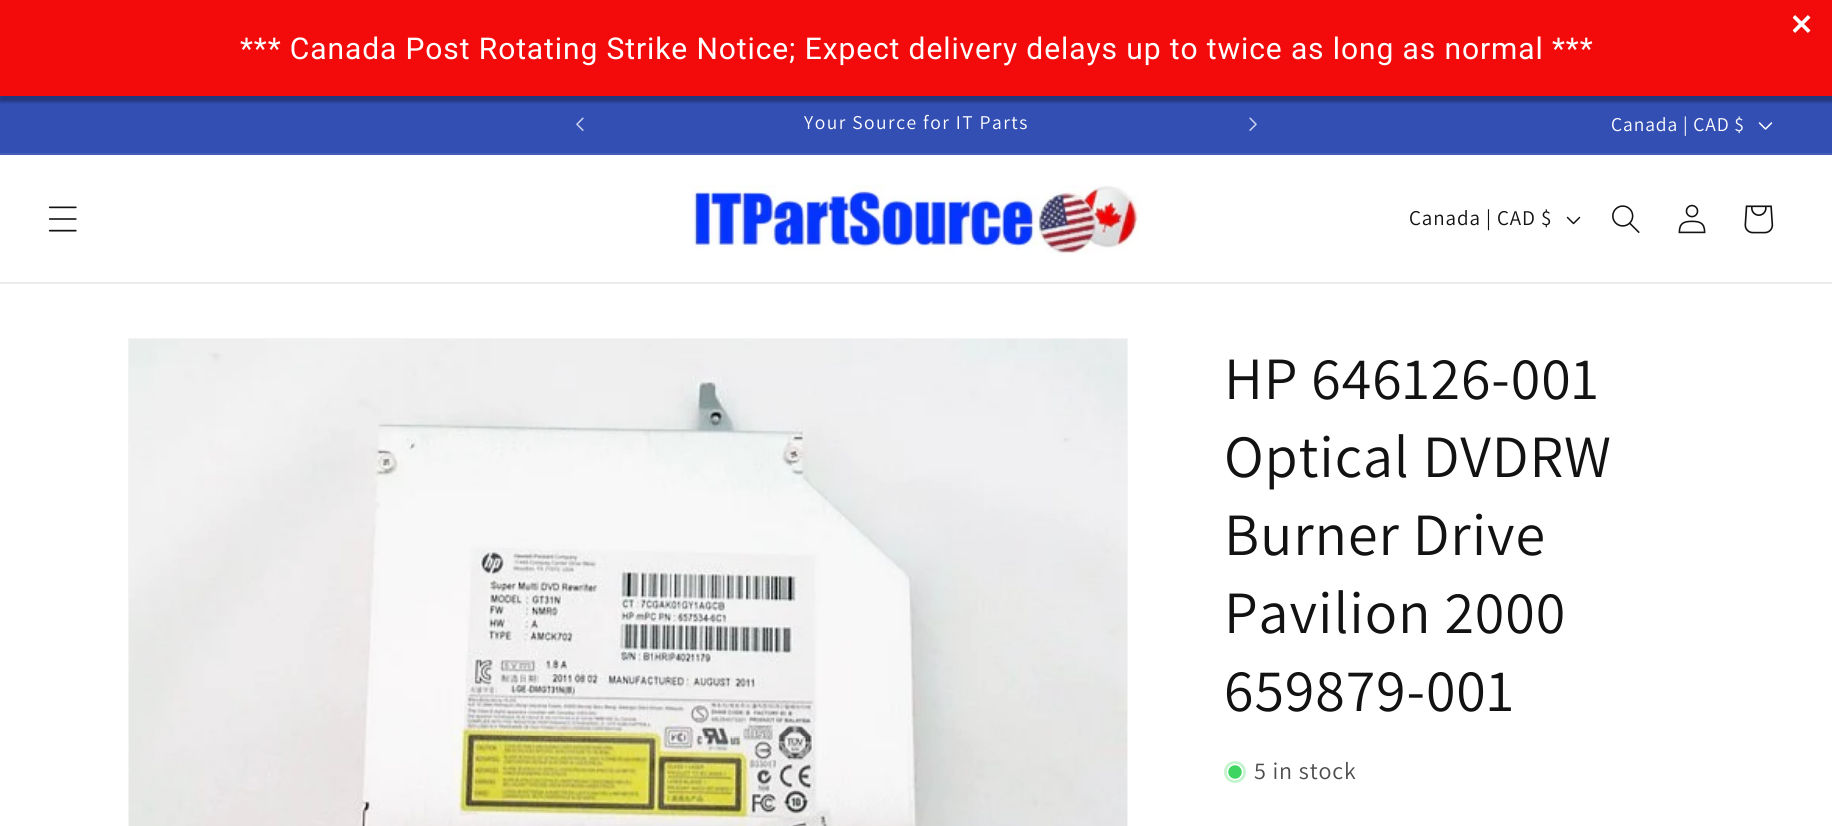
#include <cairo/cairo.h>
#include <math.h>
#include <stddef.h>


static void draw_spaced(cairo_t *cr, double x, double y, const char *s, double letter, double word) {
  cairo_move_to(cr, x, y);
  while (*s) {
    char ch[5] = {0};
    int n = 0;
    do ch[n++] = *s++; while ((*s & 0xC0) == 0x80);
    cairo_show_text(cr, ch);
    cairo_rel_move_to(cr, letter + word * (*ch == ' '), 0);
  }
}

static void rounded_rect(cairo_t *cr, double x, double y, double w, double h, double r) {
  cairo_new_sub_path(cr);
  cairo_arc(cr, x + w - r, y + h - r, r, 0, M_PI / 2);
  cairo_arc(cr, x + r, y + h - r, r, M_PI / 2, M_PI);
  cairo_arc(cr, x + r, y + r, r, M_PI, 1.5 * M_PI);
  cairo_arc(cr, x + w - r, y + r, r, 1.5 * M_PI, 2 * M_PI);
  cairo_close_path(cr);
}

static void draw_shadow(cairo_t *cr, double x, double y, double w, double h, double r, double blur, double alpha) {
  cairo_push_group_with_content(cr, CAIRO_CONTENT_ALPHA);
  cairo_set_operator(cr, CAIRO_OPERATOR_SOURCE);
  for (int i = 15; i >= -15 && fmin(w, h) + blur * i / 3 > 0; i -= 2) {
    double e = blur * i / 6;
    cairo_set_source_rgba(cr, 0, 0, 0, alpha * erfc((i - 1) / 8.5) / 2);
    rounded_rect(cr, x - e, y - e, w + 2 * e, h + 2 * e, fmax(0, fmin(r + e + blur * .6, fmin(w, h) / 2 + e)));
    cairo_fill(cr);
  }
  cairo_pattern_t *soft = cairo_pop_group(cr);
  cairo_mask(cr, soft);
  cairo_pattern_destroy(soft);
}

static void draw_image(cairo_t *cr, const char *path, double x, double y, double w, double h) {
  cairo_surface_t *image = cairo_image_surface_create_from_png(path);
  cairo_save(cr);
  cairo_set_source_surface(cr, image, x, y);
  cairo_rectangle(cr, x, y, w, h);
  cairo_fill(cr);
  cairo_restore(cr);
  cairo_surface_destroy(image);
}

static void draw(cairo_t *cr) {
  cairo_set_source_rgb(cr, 1, 1, 1);
  cairo_paint(cr);
  cairo_set_source_rgb(cr, 51 / 255.0, 79 / 255.0, 180 / 255.0);
  cairo_rectangle(cr, 0, 96, 1832, 57);
  cairo_fill(cr);
  cairo_set_source_rgb(cr, 0, 0, 0);
  draw_shadow(cr, -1, 3, 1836, 99, 0, 1.5, 0.3);
  cairo_set_source_rgb(cr, 243 / 255.0, 10 / 255.0, 10 / 255.0);
  cairo_rectangle(cr, 0, 0, 1832, 96);
  cairo_fill(cr);
  draw_image(cr, "images/1.png", 1793, 15, 18, 18);
  cairo_set_source_rgb(cr, 67 / 255.0, 93 / 255.0, 186 / 255.0);
  cairo_rectangle(cr, 0, 153, 1832, 2);
  cairo_fill(cr);
  draw_image(cr, "images/2.png", 576, 117, 8, 14);
  draw_image(cr, "images/3.png", 1249, 117, 8, 14);
  draw_image(cr, "images/4.png", 1758, 122, 15, 8);
  cairo_set_source_rgb(cr, 236 / 255.0, 236 / 255.0, 236 / 255.0);
  cairo_rectangle(cr, 0, 282, 1832, 2);
  cairo_fill(cr);
  draw_image(cr, "images/5.png", 48, 206, 29, 26);
  draw_image(cr, "images/6.png", 691, 185, 449, 69);
  draw_image(cr, "images/7.png", 1566, 216, 15, 9);
  draw_image(cr, "images/8.png", 1612, 205, 28, 28);
  draw_image(cr, "images/9.png", 1678, 204, 28, 30);
  draw_image(cr, "images/10.png", 1744, 205, 30, 29);
  cairo_rectangle(cr, 129, 339, 998, 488);
  cairo_set_source_rgb(cr, 243 / 255.0, 243 / 255.0, 243 / 255.0);
  cairo_stroke(cr);
  draw_image(cr, "images/11.png", 129, 339, 998, 487);
  cairo_set_source_rgb(cr, 197 / 255.0, 243 / 255.0, 207 / 255.0);
  cairo_arc(cr, 1235, 772, 11, 0, 2 * M_PI);
  cairo_fill(cr);
  cairo_set_source_rgb(cr, 62 / 255.0, 214 / 255.0, 96 / 255.0);
  cairo_arc(cr, 1235, 772, 7.5, 0, 2 * M_PI);
  cairo_fill_preserve(cr);
  cairo_set_source_rgb(cr, 1, 1, 1);
  cairo_set_line_width(cr, 1.5);
  cairo_stroke(cr);
  cairo_select_font_face(cr, "Roboto", CAIRO_FONT_SLANT_NORMAL, CAIRO_FONT_WEIGHT_NORMAL);
  cairo_set_font_size(cr, 30);
  draw_spaced(cr, 240, 59, "*** Canada Post Rotating Strike Notice; Expect delivery delays up to twice as long as normal ***", 0.9, 0);
  cairo_select_font_face(cr, "Assistant", CAIRO_FONT_SLANT_NORMAL, CAIRO_FONT_WEIGHT_NORMAL);
  cairo_set_font_size(cr, 19.5);
  draw_spaced(cr, 804, 129, "Your Source for IT Parts", 1.5, 0);
  draw_spaced(cr, 1611, 131, "Canada | CAD $", 0.9, 0);
  cairo_set_font_size(cr, 21);
  cairo_set_source_rgb(cr, 18 / 255.0, 18 / 255.0, 18 / 255.0);
  draw_spaced(cr, 1409, 225, "Canada | CAD $", 0.9, 0);
  cairo_set_font_size(cr, 60);
  draw_spaced(cr, 1224, 399, "HP 646126-001", 0.9, 0);
  draw_spaced(cr, 1224, 477, "Optical DVDRW", 0.9, 0);
  draw_spaced(cr, 1224, 555, "Burner Drive", 0.9, 0);
  draw_spaced(cr, 1224, 633, "Pavilion 2000", 0.9, 0);
  draw_spaced(cr, 1224, 711, "659879-001", 0.9, 0);
  cairo_set_font_size(cr, 24);
  cairo_set_source_rgb(cr, 77 / 255.0, 77 / 255.0, 77 / 255.0);
  draw_spaced(cr, 1254, 779, "5 in stock", 0.9, 0);
}

int main(void) {
  cairo_surface_t *surface = cairo_image_surface_create(CAIRO_FORMAT_RGB24, 1832, 826);
  cairo_t *cr = cairo_create(surface);
  cairo_font_options_t *options = cairo_font_options_create();
  cairo_font_options_set_hint_metrics(options, CAIRO_HINT_METRICS_OFF);
  cairo_font_options_set_hint_style(options, CAIRO_HINT_STYLE_NONE);
  cairo_set_font_options(cr, options);
  cairo_set_miter_limit(cr, 4);
  draw(cr);
  cairo_surface_write_to_png(surface, "out.png");
  cairo_font_options_destroy(options);
  cairo_destroy(cr);
  cairo_surface_destroy(surface);
  return 0;
}
